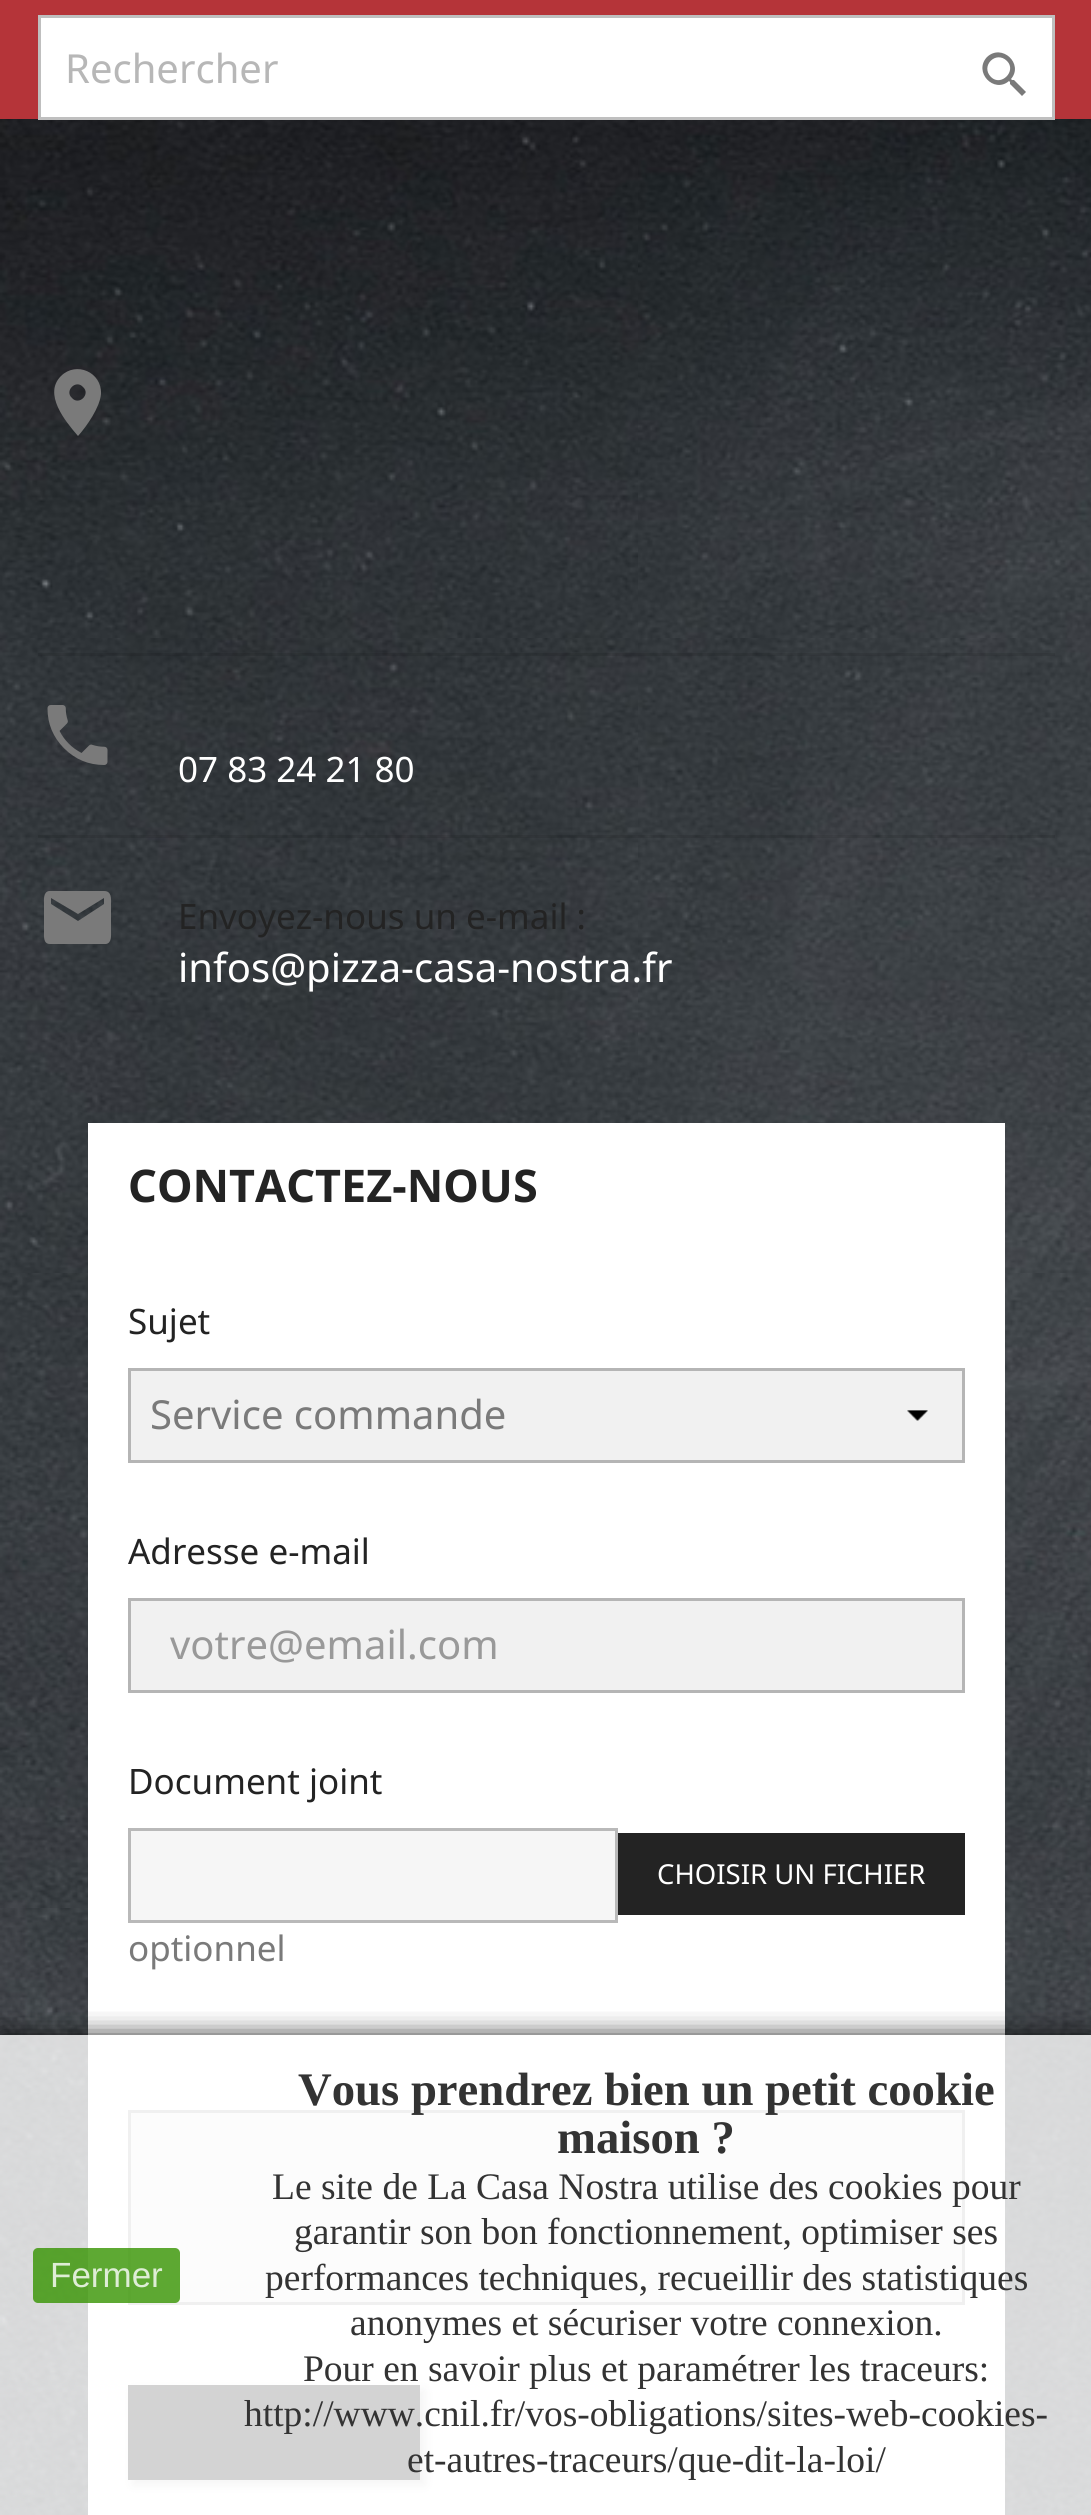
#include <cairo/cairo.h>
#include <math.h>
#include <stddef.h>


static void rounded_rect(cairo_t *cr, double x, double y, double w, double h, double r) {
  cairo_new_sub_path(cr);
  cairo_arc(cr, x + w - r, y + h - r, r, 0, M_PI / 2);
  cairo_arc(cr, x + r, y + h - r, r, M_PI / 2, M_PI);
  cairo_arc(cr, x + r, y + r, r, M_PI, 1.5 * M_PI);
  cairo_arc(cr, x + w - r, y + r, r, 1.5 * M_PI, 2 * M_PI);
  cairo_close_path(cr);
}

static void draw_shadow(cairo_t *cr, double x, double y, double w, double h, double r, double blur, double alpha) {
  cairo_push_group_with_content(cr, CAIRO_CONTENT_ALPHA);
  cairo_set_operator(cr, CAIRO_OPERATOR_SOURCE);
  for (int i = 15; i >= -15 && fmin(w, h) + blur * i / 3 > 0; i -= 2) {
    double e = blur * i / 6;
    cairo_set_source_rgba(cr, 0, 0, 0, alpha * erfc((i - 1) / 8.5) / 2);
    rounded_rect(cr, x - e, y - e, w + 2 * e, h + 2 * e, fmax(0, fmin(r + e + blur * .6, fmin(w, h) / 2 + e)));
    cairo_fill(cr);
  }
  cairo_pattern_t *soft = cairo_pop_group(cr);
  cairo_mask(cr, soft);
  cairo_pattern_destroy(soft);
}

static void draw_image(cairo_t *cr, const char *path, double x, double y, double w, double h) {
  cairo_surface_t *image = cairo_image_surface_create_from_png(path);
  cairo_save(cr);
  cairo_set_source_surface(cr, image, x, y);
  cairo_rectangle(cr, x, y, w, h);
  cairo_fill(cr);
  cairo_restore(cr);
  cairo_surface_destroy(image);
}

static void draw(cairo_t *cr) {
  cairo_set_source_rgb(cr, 181 / 255.0, 52 / 255.0, 57 / 255.0);
  cairo_paint(cr);
  draw_image(cr, "images/1.png", 0, 119, 1091, 2396);
  cairo_set_source_rgb(cr, 1, 1, 1);
  cairo_rectangle(cr, 39.5, 16.5, 1014, 102);
  cairo_fill_preserve(cr);
  cairo_set_source_rgb(cr, 191 / 255.0, 191 / 255.0, 191 / 255.0);
  cairo_set_line_width(cr, 3);
  cairo_stroke(cr);
  cairo_set_source_rgb(cr, 122 / 255.0, 122 / 255.0, 122 / 255.0);
  cairo_new_path(cr);
  cairo_move_to(cr, 991, 77);
  cairo_curve_to(cr, 1001, 87, 1017, 71, 1007, 61);
  cairo_curve_to(cr, 996, 50, 980, 66, 991, 77);
  cairo_close_path(cr);
  cairo_move_to(cr, 1014, 80);
  cairo_line_to(cr, 1026, 92);
  cairo_line_to(cr, 1022, 96);
  cairo_line_to(cr, 1010, 84);
  cairo_line_to(cr, 1010, 82);
  cairo_line_to(cr, 1009, 81);
  cairo_curve_to(cr, 994, 94, 973, 72, 987, 57);
  cairo_curve_to(cr, 1002, 43, 1024, 64, 1011, 79);
  cairo_line_to(cr, 1012, 80);
  cairo_close_path(cr);
  cairo_fill(cr);
  cairo_new_path(cr);
  cairo_move_to(cr, 72, 398);
  cairo_curve_to(cr, 79, 406, 91, 394, 83, 387);
  cairo_curve_to(cr, 76, 379, 64, 391, 72, 398);
  cairo_close_path(cr);
  cairo_move_to(cr, 61, 376);
  cairo_curve_to(cr, 76, 361, 102, 372, 101, 394);
  cairo_curve_to(cr, 100, 407, 87, 426, 78, 436);
  cairo_curve_to(cr, 65, 421, 43, 394, 61, 376);
  cairo_close_path(cr);
  cairo_fill(cr);
  cairo_set_source_rgba(cr, 0, 0, 0, 0.1);
  cairo_rectangle(cr, 38, 653, 1017, 3);
  cairo_fill(cr);
  draw_image(cr, "images/2.png", 47, 705, 61, 60);
  cairo_rectangle(cr, 38, 835, 1017, 3);
  cairo_fill(cr);
  cairo_set_source_rgb(cr, 122 / 255.0, 122 / 255.0, 122 / 255.0);
  cairo_new_path(cr);
  cairo_move_to(cr, 104, 904);
  cairo_line_to(cr, 104, 898);
  cairo_line_to(cr, 78, 914);
  cairo_line_to(cr, 51, 898);
  cairo_line_to(cr, 51, 904);
  cairo_line_to(cr, 78, 921);
  cairo_close_path(cr);
  cairo_move_to(cr, 104, 891);
  cairo_curve_to(cr, 112, 891, 111, 899, 111, 904);
  cairo_line_to(cr, 111, 931);
  cairo_curve_to(cr, 111, 935, 112, 943, 106, 944);
  cairo_line_to(cr, 50, 944);
  cairo_curve_to(cr, 43, 944, 44, 936, 44, 931);
  cairo_line_to(cr, 44, 904);
  cairo_curve_to(cr, 44, 900, 43, 892, 49, 891);
  cairo_close_path(cr);
  cairo_fill(cr);
  cairo_set_source_rgb(cr, 1, 1, 1);
  cairo_rectangle(cr, 88, 1123, 917, 1392);
  cairo_fill(cr);
  cairo_set_source_rgb(cr, 241 / 255.0, 241 / 255.0, 241 / 255.0);
  cairo_rectangle(cr, 131, 1371, 831, 89);
  cairo_fill(cr);
  draw_image(cr, "images/3.png", 907, 1410, 21, 11);
  cairo_rectangle(cr, 129.5, 1369.5, 834, 92);
  cairo_set_source_rgb(cr, 181 / 255.0, 181 / 255.0, 181 / 255.0);
  cairo_stroke(cr);
  cairo_set_source_rgb(cr, 241 / 255.0, 241 / 255.0, 241 / 255.0);
  cairo_rectangle(cr, 129.5, 1599.5, 834, 92);
  cairo_fill_preserve(cr);
  cairo_set_source_rgb(cr, 181 / 255.0, 181 / 255.0, 181 / 255.0);
  cairo_stroke(cr);
  cairo_set_source_rgb(cr, 246 / 255.0, 246 / 255.0, 246 / 255.0);
  cairo_rectangle(cr, 129.5, 1829.5, 487, 92);
  cairo_fill_preserve(cr);
  cairo_set_source_rgb(cr, 185 / 255.0, 185 / 255.0, 185 / 255.0);
  cairo_stroke(cr);
  cairo_set_source_rgb(cr, 35 / 255.0, 35 / 255.0, 35 / 255.0);
  cairo_rectangle(cr, 618, 1833, 347, 82);
  cairo_fill(cr);
  cairo_set_source_rgb(cr, 241 / 255.0, 241 / 255.0, 241 / 255.0);
  cairo_rectangle(cr, 129.5, 2111.5, 834, 192);
  cairo_fill_preserve(cr);
  cairo_set_source_rgb(cr, 181 / 255.0, 181 / 255.0, 181 / 255.0);
  cairo_stroke(cr);
  cairo_set_source_rgb(cr, 0, 0, 0);
  draw_shadow(cr, 133, 2390, 292, 95, 0, 5, 0.2);
  cairo_set_source_rgb(cr, 35 / 255.0, 35 / 255.0, 35 / 255.0);
  cairo_rectangle(cr, 128, 2385, 292, 95);
  cairo_fill(cr);
  cairo_save(cr);
  cairo_rectangle(cr, 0, 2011, 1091, 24);
  cairo_clip(cr);
  cairo_set_source_rgb(cr, 0, 0, 0);
  draw_shadow(cr, 0, 2035, 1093, 480, 0, 12.5, 0.8);
  cairo_restore(cr);
  cairo_set_source_rgba(cr, 1, 1, 1, 0.8);
  cairo_rectangle(cr, 0, 2035, 1091, 480);
  cairo_fill(cr);
  cairo_set_source_rgba(cr, 54 / 255.0, 148 / 255.0, 0, 0.8);
  rounded_rect(cr, 33, 2248, 147, 55, 5);
  cairo_fill(cr);
  cairo_select_font_face(cr, "Noto Sans", CAIRO_FONT_SLANT_NORMAL, CAIRO_FONT_WEIGHT_NORMAL);
  cairo_set_font_size(cr, 40);
  cairo_set_source_rgb(cr, 183 / 255.0, 183 / 255.0, 183 / 255.0);
  cairo_move_to(cr, 65, 83);
  cairo_show_text(cr, "Rechercher");
  cairo_set_font_size(cr, 35);
  cairo_set_source_rgb(cr, 1, 1, 1);
  cairo_move_to(cr, 178, 782);
  cairo_show_text(cr, "07 83 24 21 80");
  cairo_set_source_rgb(cr, 35 / 255.0, 35 / 255.0, 35 / 255.0);
  cairo_move_to(cr, 178, 929);
  cairo_show_text(cr, "Envoyez-nous un e-mail :");
  cairo_set_font_size(cr, 40);
  cairo_set_source_rgb(cr, 1, 1, 1);
  cairo_move_to(cr, 178, 982);
  cairo_show_text(cr, "infos@pizza-casa-nostra.fr");
  cairo_select_font_face(cr, "Noto Sans", CAIRO_FONT_SLANT_NORMAL, CAIRO_FONT_WEIGHT_BOLD);
  cairo_set_font_size(cr, 45);
  cairo_set_source_rgb(cr, 35 / 255.0, 35 / 255.0, 35 / 255.0);
  cairo_move_to(cr, 128, 1202);
  cairo_show_text(cr, "CONTACTEZ-NOUS");
  cairo_select_font_face(cr, "Noto Sans", CAIRO_FONT_SLANT_NORMAL, CAIRO_FONT_WEIGHT_NORMAL);
  cairo_set_font_size(cr, 35);
  cairo_move_to(cr, 128, 1334);
  cairo_show_text(cr, "Sujet");
  cairo_set_font_size(cr, 40);
  cairo_set_source_rgb(cr, 122 / 255.0, 122 / 255.0, 122 / 255.0);
  cairo_move_to(cr, 150, 1429);
  cairo_show_text(cr, "Service commande");
  cairo_set_font_size(cr, 35);
  cairo_set_source_rgb(cr, 35 / 255.0, 35 / 255.0, 35 / 255.0);
  cairo_move_to(cr, 128, 1564);
  cairo_show_text(cr, "Adresse e-mail");
  cairo_set_font_size(cr, 40);
  cairo_set_source_rgb(cr, 153 / 255.0, 153 / 255.0, 153 / 255.0);
  cairo_move_to(cr, 170, 1659);
  cairo_show_text(cr, "votre@email.com");
  cairo_set_font_size(cr, 35);
  cairo_set_source_rgb(cr, 35 / 255.0, 35 / 255.0, 35 / 255.0);
  cairo_move_to(cr, 128, 1794);
  cairo_show_text(cr, "Document joint");
  cairo_set_font_size(cr, 27.5);
  cairo_set_source_rgb(cr, 1, 1, 1);
  cairo_move_to(cr, 657, 1884);
  cairo_show_text(cr, "CHOISIR UN FICHIER");
  cairo_set_font_size(cr, 35);
  cairo_set_source_rgb(cr, 122 / 255.0, 122 / 255.0, 122 / 255.0);
  cairo_move_to(cr, 128, 1961);
  cairo_show_text(cr, "optionnel");
  cairo_select_font_face(cr, "Liberation Sans", CAIRO_FONT_SLANT_NORMAL, CAIRO_FONT_WEIGHT_NORMAL);
  cairo_set_source_rgb(cr, 222 / 255.0, 237 / 255.0, 214 / 255.0);
  cairo_move_to(cr, 50, 2287);
  cairo_show_text(cr, "Fermer");
  cairo_select_font_face(cr, "Liberation Serif", CAIRO_FONT_SLANT_NORMAL, CAIRO_FONT_WEIGHT_BOLD);
  cairo_set_font_size(cr, 46.7);
  cairo_set_source_rgb(cr, 51 / 255.0, 51 / 255.0, 51 / 255.0);
  cairo_move_to(cr, 298, 2105);
  cairo_show_text(cr, "Vous prendrez bien un petit cookie");
  cairo_move_to(cr, 557, 2153);
  cairo_show_text(cr, "maison ?");
  cairo_select_font_face(cr, "Liberation Serif", CAIRO_FONT_SLANT_NORMAL, CAIRO_FONT_WEIGHT_NORMAL);
  cairo_set_font_size(cr, 37.5);
  cairo_move_to(cr, 272, 2199);
  cairo_show_text(cr, "Le site de La Casa Nostra utilise des cookies pour");
  cairo_move_to(cr, 294, 2244);
  cairo_show_text(cr, "garantir son bon fonctionnement, optimiser ses");
  cairo_move_to(cr, 265, 2290);
  cairo_show_text(cr, "performances techniques, recueillir des statistiques");
  cairo_move_to(cr, 350, 2335);
  cairo_show_text(cr, "anonymes et sécuriser votre connexion.");
  cairo_move_to(cr, 303, 2381);
  cairo_show_text(cr, "Pour en savoir plus et paramétrer les traceurs:");
  cairo_move_to(cr, 244, 2426);
  cairo_show_text(cr, "http://www.cnil.fr/vos-obligations/sites-web-cookies-");
  cairo_move_to(cr, 407, 2472);
  cairo_show_text(cr, "et-autres-traceurs/que-dit-la-loi/");
}

int main(void) {
  cairo_surface_t *surface = cairo_image_surface_create(CAIRO_FORMAT_RGB24, 1091, 2515);
  cairo_t *cr = cairo_create(surface);
  cairo_font_options_t *options = cairo_font_options_create();
  cairo_font_options_set_hint_metrics(options, CAIRO_HINT_METRICS_OFF);
  cairo_font_options_set_hint_style(options, CAIRO_HINT_STYLE_NONE);
  cairo_set_font_options(cr, options);
  cairo_set_miter_limit(cr, 4);
  draw(cr);
  cairo_surface_write_to_png(surface, "out.png");
  cairo_font_options_destroy(options);
  cairo_destroy(cr);
  cairo_surface_destroy(surface);
  return 0;
}
